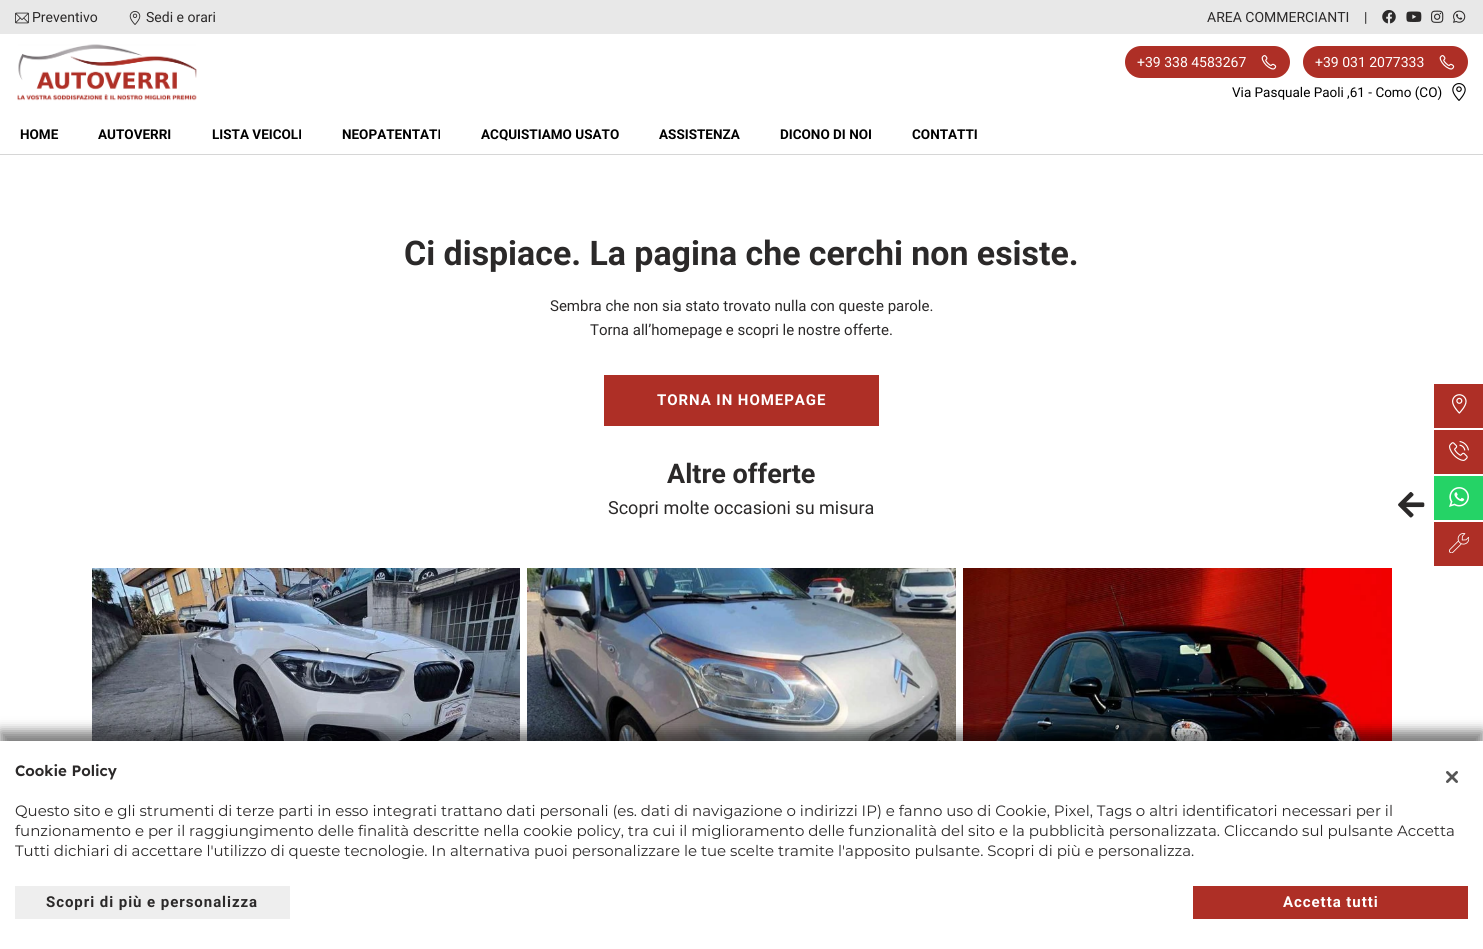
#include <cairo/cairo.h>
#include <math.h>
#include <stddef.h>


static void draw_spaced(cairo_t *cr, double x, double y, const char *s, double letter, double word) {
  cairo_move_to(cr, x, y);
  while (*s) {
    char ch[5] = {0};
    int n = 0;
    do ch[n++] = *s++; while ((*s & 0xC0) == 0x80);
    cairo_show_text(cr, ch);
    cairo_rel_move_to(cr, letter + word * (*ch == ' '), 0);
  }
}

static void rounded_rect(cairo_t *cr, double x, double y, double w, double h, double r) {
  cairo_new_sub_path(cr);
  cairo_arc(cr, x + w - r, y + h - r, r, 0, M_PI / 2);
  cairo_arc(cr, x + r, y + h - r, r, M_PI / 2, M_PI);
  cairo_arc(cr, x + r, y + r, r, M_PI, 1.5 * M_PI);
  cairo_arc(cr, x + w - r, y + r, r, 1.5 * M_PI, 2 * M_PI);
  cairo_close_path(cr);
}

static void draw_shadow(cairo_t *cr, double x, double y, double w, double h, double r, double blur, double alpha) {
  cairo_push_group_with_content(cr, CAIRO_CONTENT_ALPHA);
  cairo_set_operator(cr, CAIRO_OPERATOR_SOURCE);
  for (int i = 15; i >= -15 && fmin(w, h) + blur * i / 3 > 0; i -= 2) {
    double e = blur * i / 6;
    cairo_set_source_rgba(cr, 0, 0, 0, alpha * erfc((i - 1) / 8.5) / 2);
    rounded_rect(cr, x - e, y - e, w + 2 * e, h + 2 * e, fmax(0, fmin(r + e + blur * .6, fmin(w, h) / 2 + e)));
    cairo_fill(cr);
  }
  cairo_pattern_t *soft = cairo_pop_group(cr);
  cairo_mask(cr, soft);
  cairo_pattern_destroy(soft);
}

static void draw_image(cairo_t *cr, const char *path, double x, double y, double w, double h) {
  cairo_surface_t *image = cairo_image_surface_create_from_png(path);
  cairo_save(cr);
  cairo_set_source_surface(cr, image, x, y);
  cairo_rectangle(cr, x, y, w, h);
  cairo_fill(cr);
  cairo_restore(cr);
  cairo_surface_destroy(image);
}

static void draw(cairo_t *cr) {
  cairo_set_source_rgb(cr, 1, 1, 1);
  cairo_paint(cr);
  cairo_set_source_rgb(cr, 232 / 255.0, 232 / 255.0, 232 / 255.0);
  cairo_rectangle(cr, 0, 0, 1483, 34);
  cairo_fill(cr);
  draw_image(cr, "images/1.png", 15, 12, 14, 12);
  draw_image(cr, "images/2.png", 129, 11, 12, 14);
  draw_image(cr, "images/3.png", 1382, 10, 14, 14);
  draw_image(cr, "images/4.png", 1406, 11, 16, 11);
  draw_image(cr, "images/5.png", 1431, 10, 13, 13);
  draw_image(cr, "images/6.png", 1453, 10, 13, 13);
  draw_image(cr, "images/7.png", 17, 44, 180, 57);
  cairo_set_source_rgb(cr, 174 / 255.0, 47 / 255.0, 38 / 255.0);
  rounded_rect(cr, 1125, 46, 165, 32, 16);
  cairo_fill(cr);
  draw_image(cr, "images/8.png", 1261, 55, 16, 15);
  rounded_rect(cr, 1303, 46, 165, 32, 16);
  cairo_fill(cr);
  draw_image(cr, "images/8.png", 1439, 55, 16, 15);
  draw_image(cr, "images/9.png", 1452, 83, 14, 18);
  cairo_set_source_rgb(cr, 214 / 255.0, 214 / 255.0, 214 / 255.0);
  cairo_rectangle(cr, 0, 154, 1483, 1);
  cairo_fill(cr);
  cairo_set_source_rgb(cr, 174 / 255.0, 47 / 255.0, 38 / 255.0);
  cairo_rectangle(cr, 604, 375, 275, 51);
  cairo_fill(cr);
  draw_image(cr, "images/10.png", 1398, 492, 27, 26);
  draw_image(cr, "images/11.png", 92, 568, 428, 173);
  draw_image(cr, "images/12.png", 527, 568, 429, 173);
  draw_image(cr, "images/13.png", 963, 568, 429, 173);
  cairo_rectangle(cr, 1434, 384, 49, 44);
  cairo_fill(cr);
  draw_image(cr, "images/14.png", 1452, 394, 15, 20);
  cairo_rectangle(cr, 1434, 430, 49, 44);
  cairo_fill(cr);
  draw_image(cr, "images/15.png", 1449, 441, 20, 20);
  cairo_set_source_rgb(cr, 37 / 255.0, 211 / 255.0, 102 / 255.0);
  cairo_rectangle(cr, 1434, 476, 49, 44);
  cairo_fill(cr);
  draw_image(cr, "images/16.png", 1449, 487, 20, 20);
  cairo_set_source_rgb(cr, 174 / 255.0, 47 / 255.0, 38 / 255.0);
  cairo_rectangle(cr, 1434, 522, 49, 44);
  cairo_fill(cr);
  draw_image(cr, "images/17.png", 1449, 533, 20, 20);
  cairo_set_source_rgb(cr, 0, 0, 0);
  draw_shadow(cr, 0, 731, 1483, 208, 0, 6, 0.5);
  cairo_set_source_rgb(cr, 1, 1, 1);
  cairo_rectangle(cr, 0, 741, 1483, 208);
  cairo_fill(cr);
  cairo_set_source_rgb(cr, 238 / 255.0, 238 / 255.0, 238 / 255.0);
  cairo_rectangle(cr, 15, 886, 275, 33);
  cairo_fill(cr);
  cairo_set_source_rgb(cr, 174 / 255.0, 47 / 255.0, 38 / 255.0);
  cairo_rectangle(cr, 1193, 886, 275, 33);
  cairo_fill(cr);
  draw_image(cr, "images/18.png", 1446, 771, 12, 12);
  cairo_select_font_face(cr, "Roboto", CAIRO_FONT_SLANT_NORMAL, CAIRO_FONT_WEIGHT_NORMAL);
  cairo_set_font_size(cr, 14);
  cairo_set_source_rgb(cr, 43 / 255.0, 41 / 255.0, 41 / 255.0);
  cairo_move_to(cr, 32, 22);
  cairo_show_text(cr, "Preventivo");
  cairo_move_to(cr, 146, 22);
  cairo_show_text(cr, "Sedi e orari");
  cairo_move_to(cr, 1207, 22);
  cairo_show_text(cr, "AREA COMMERCIANTI");
  cairo_move_to(cr, 1364, 22);
  cairo_show_text(cr, "|");
  cairo_set_source_rgb(cr, 1, 1, 1);
  cairo_move_to(cr, 1137, 67);
  cairo_show_text(cr, "+39 338 4583267");
  cairo_move_to(cr, 1315, 67);
  cairo_show_text(cr, "+39 031 2077333");
  cairo_set_font_size(cr, 13.5);
  cairo_set_source_rgb(cr, 0, 0, 0);
  cairo_move_to(cr, 1232, 97);
  cairo_show_text(cr, "Via Pasquale Paoli ,61 - Como (CO)");
  cairo_select_font_face(cr, "Roboto", CAIRO_FONT_SLANT_NORMAL, CAIRO_FONT_WEIGHT_BOLD);
  cairo_move_to(cr, 20, 139);
  cairo_show_text(cr, "HOME");
  cairo_move_to(cr, 98, 139);
  cairo_show_text(cr, "AUTOVERRI");
  cairo_move_to(cr, 212, 139);
  cairo_show_text(cr, "LISTA VEICOLI");
  cairo_move_to(cr, 342, 139);
  cairo_show_text(cr, "NEOPATENTATI");
  cairo_move_to(cr, 481, 139);
  cairo_show_text(cr, "ACQUISTIAMO USATO");
  cairo_move_to(cr, 659, 139);
  cairo_show_text(cr, "ASSISTENZA");
  cairo_move_to(cr, 780, 139);
  cairo_show_text(cr, "DICONO DI NOI");
  cairo_move_to(cr, 912, 139);
  cairo_show_text(cr, "CONTATTI");
  cairo_set_font_size(cr, 33.9);
  cairo_set_source_rgb(cr, 43 / 255.0, 41 / 255.0, 41 / 255.0);
  cairo_move_to(cr, 404, 265);
  cairo_show_text(cr, "Ci dispiace. La pagina che cerchi non esiste.");
  cairo_select_font_face(cr, "Roboto", CAIRO_FONT_SLANT_NORMAL, CAIRO_FONT_WEIGHT_NORMAL);
  cairo_set_font_size(cr, 15);
  cairo_move_to(cr, 550, 311);
  cairo_show_text(cr, "Sembra che non sia stato trovato nulla con queste parole.");
  cairo_move_to(cr, 590, 335);
  cairo_show_text(cr, "Torna all’homepage e scopri le nostre offerte.");
  cairo_select_font_face(cr, "Roboto", CAIRO_FONT_SLANT_NORMAL, CAIRO_FONT_WEIGHT_BOLD);
  cairo_set_source_rgb(cr, 1, 1, 1);
  draw_spaced(cr, 657, 405, "TORNA IN HOMEPAGE", 0.95, 0);
  cairo_set_font_size(cr, 27);
  cairo_set_source_rgb(cr, 43 / 255.0, 41 / 255.0, 41 / 255.0);
  cairo_move_to(cr, 667, 483);
  cairo_show_text(cr, "Altre offerte");
  cairo_select_font_face(cr, "Roboto", CAIRO_FONT_SLANT_NORMAL, CAIRO_FONT_WEIGHT_NORMAL);
  cairo_set_font_size(cr, 18);
  cairo_move_to(cr, 608, 514);
  cairo_show_text(cr, "Scopri molte occasioni su misura");
  cairo_select_font_face(cr, "Lexend SemiBold", CAIRO_FONT_SLANT_NORMAL, CAIRO_FONT_WEIGHT_NORMAL);
  cairo_set_font_size(cr, 15);
  cairo_move_to(cr, 15, 776);
  cairo_show_text(cr, "Cookie Policy");
  cairo_select_font_face(cr, "Montserrat", CAIRO_FONT_SLANT_NORMAL, CAIRO_FONT_WEIGHT_NORMAL);
  cairo_move_to(cr, 15, 816);
  cairo_show_text(cr, "Questo sito e gli strumenti di terze parti in esso integrati trattano dati personali (es. dati di navigazione o indirizzi IP) e fanno uso di Cookie, Pixel, Tags o altri identificatori necessari per il");
  cairo_move_to(cr, 15, 836);
  cairo_show_text(cr, "funzionamento e per il raggiungimento delle finalità descritte nella cookie policy, tra cui il miglioramento delle funzionalità del sito e la pubblicità personalizzata. Cliccando sul pulsante Accetta");
  cairo_move_to(cr, 15, 856);
  cairo_show_text(cr, "Tutti dichiari di accettare l'utilizzo di queste tecnologie. In alternativa puoi personalizzare le tue scelte tramite l'apposito pulsante. Scopri di più e personalizza.");
  cairo_select_font_face(cr, "Roboto", CAIRO_FONT_SLANT_NORMAL, CAIRO_FONT_WEIGHT_BOLD);
  draw_spaced(cr, 46, 907, "Scopri di più e personalizza", 0.95, 0);
  cairo_set_source_rgb(cr, 1, 1, 1);
  draw_spaced(cr, 1283, 907, "Accetta tutti", 0.95, 0);
}

int main(void) {
  cairo_surface_t *surface = cairo_image_surface_create(CAIRO_FORMAT_RGB24, 1483, 949);
  cairo_t *cr = cairo_create(surface);
  cairo_font_options_t *options = cairo_font_options_create();
  cairo_font_options_set_hint_metrics(options, CAIRO_HINT_METRICS_OFF);
  cairo_font_options_set_hint_style(options, CAIRO_HINT_STYLE_NONE);
  cairo_set_font_options(cr, options);
  cairo_set_miter_limit(cr, 4);
  draw(cr);
  cairo_surface_write_to_png(surface, "out.png");
  cairo_font_options_destroy(options);
  cairo_destroy(cr);
  cairo_surface_destroy(surface);
  return 0;
}
